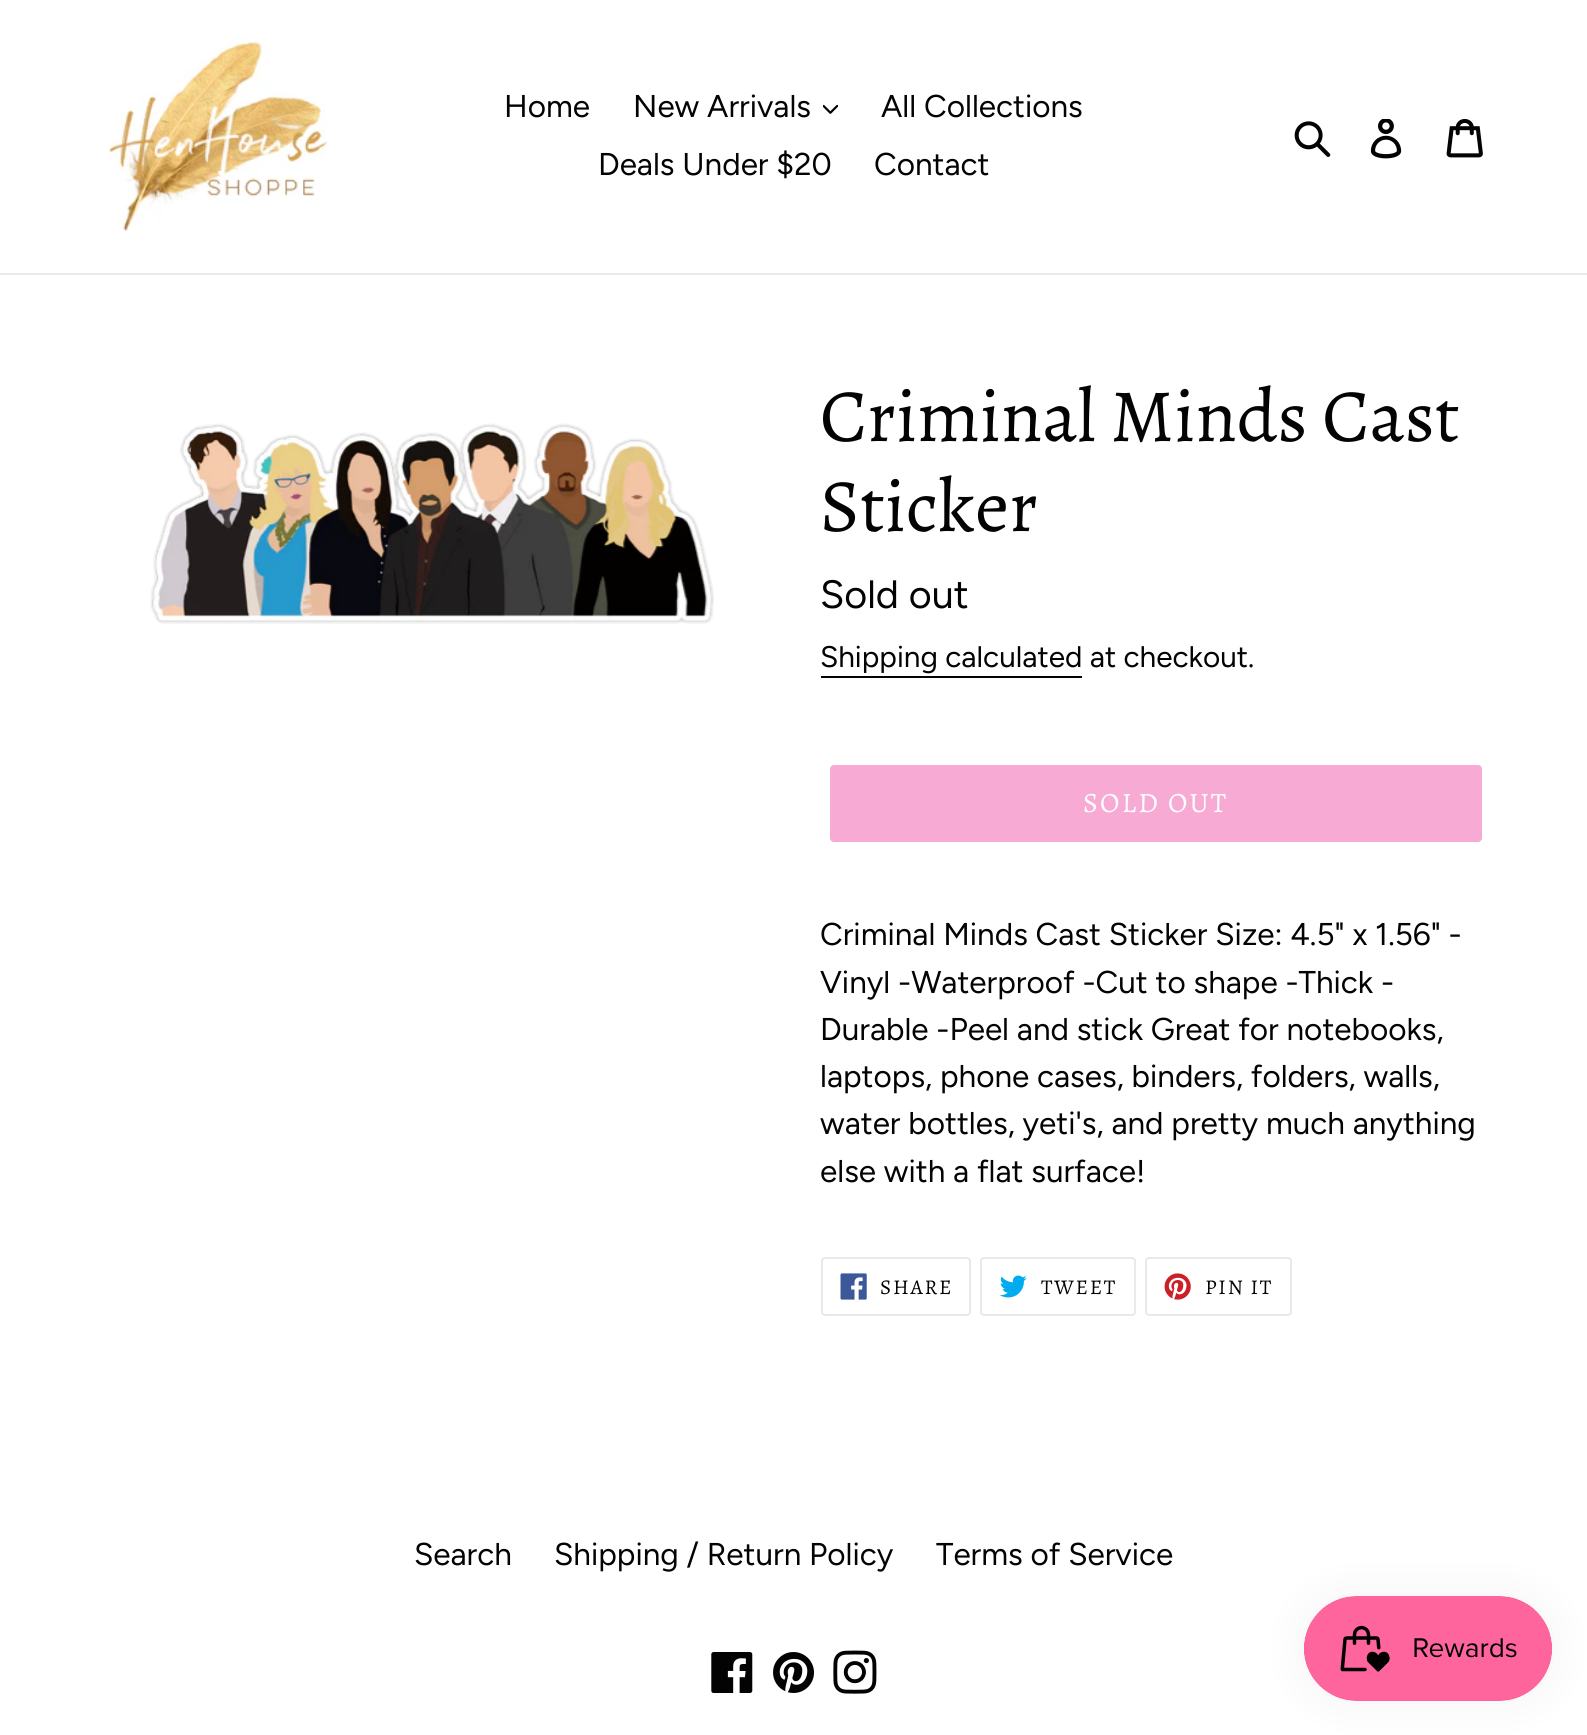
#include <cairo/cairo.h>
#include <math.h>
#include <stddef.h>


static void draw_spaced(cairo_t *cr, double x, double y, const char *s, double letter, double word) {
  cairo_move_to(cr, x, y);
  while (*s) {
    char ch[5] = {0};
    int n = 0;
    do ch[n++] = *s++; while ((*s & 0xC0) == 0x80);
    cairo_show_text(cr, ch);
    cairo_rel_move_to(cr, letter + word * (*ch == ' '), 0);
  }
}

static void rounded_rect(cairo_t *cr, double x, double y, double w, double h, double r) {
  cairo_new_sub_path(cr);
  cairo_arc(cr, x + w - r, y + h - r, r, 0, M_PI / 2);
  cairo_arc(cr, x + r, y + h - r, r, M_PI / 2, M_PI);
  cairo_arc(cr, x + r, y + r, r, M_PI, 1.5 * M_PI);
  cairo_arc(cr, x + w - r, y + r, r, 1.5 * M_PI, 2 * M_PI);
  cairo_close_path(cr);
}

static void draw_shadow(cairo_t *cr, double x, double y, double w, double h, double r, double blur, double alpha) {
  cairo_push_group_with_content(cr, CAIRO_CONTENT_ALPHA);
  cairo_set_operator(cr, CAIRO_OPERATOR_SOURCE);
  for (int i = 15; i >= -15 && fmin(w, h) + blur * i / 3 > 0; i -= 2) {
    double e = blur * i / 6;
    cairo_set_source_rgba(cr, 0, 0, 0, alpha * erfc((i - 1) / 8.5) / 2);
    rounded_rect(cr, x - e, y - e, w + 2 * e, h + 2 * e, fmax(0, fmin(r + e + blur * .6, fmin(w, h) / 2 + e)));
    cairo_fill(cr);
  }
  cairo_pattern_t *soft = cairo_pop_group(cr);
  cairo_mask(cr, soft);
  cairo_pattern_destroy(soft);
}

static void draw_image(cairo_t *cr, const char *path, double x, double y, double w, double h) {
  cairo_surface_t *image = cairo_image_surface_create_from_png(path);
  cairo_save(cr);
  cairo_set_source_surface(cr, image, x, y);
  cairo_rectangle(cr, x, y, w, h);
  cairo_fill(cr);
  cairo_restore(cr);
  cairo_surface_destroy(image);
}

static void draw(cairo_t *cr) {
  cairo_set_source_rgb(cr, 1, 1, 1);
  cairo_paint(cr);
  cairo_set_source_rgb(cr, 232 / 255.0, 233 / 255.0, 235 / 255.0);
  cairo_rectangle(cr, 0, 273, 1587, 2);
  cairo_fill(cr);
  draw_image(cr, "images/1.png", 108, 37, 222, 194);
  draw_image(cr, "images/2.png", 823, 104, 15, 10);
  draw_image(cr, "images/3.png", 1294, 121, 37, 36);
  draw_image(cr, "images/4.png", 1370, 119, 32, 40);
  draw_image(cr, "images/5.png", 1446, 119, 37, 39);
  draw_image(cr, "images/6.png", 150, 423, 564, 201);
  cairo_set_source_rgb(cr, 3 / 255.0, 3 / 255.0, 3 / 255.0);
  cairo_rectangle(cr, 821, 676, 261, 2);
  cairo_fill(cr);
  cairo_set_source_rgb(cr, 247 / 255.0, 170 / 255.0, 212 / 255.0);
  rounded_rect(cr, 830, 765, 652, 77, 4);
  cairo_fill(cr);
  rounded_rect(cr, 822, 1258, 148, 57, 3);
  cairo_set_source_rgb(cr, 232 / 255.0, 233 / 255.0, 235 / 255.0);
  cairo_stroke(cr);
  draw_image(cr, "images/7.png", 840, 1273, 27, 27);
  rounded_rect(cr, 981, 1258, 154, 57, 3);
  cairo_stroke(cr);
  draw_image(cr, "images/8.png", 1000, 1275, 27, 23);
  rounded_rect(cr, 1146, 1258, 145, 57, 3);
  cairo_stroke(cr);
  draw_image(cr, "images/9.png", 1164, 1273, 27, 27);
  draw_image(cr, "images/10.png", 711, 1652, 42, 41);
  draw_image(cr, "images/11.png", 773, 1652, 41, 41);
  draw_image(cr, "images/12.png", 833, 1650, 44, 44);
  cairo_set_source_rgb(cr, 0, 0, 0);
  draw_shadow(cr, 1304, 1596, 248, 105, 52.5, 22, 0.05);
  draw_image(cr, "images/13.png", 1304, 1596, 248, 105);
  cairo_select_font_face(cr, "Figtree", CAIRO_FONT_SLANT_NORMAL, CAIRO_FONT_WEIGHT_NORMAL);
  cairo_set_font_size(cr, 31.5);
  cairo_set_source_rgb(cr, 3 / 255.0, 3 / 255.0, 3 / 255.0);
  cairo_move_to(cr, 504, 117);
  cairo_show_text(cr, "Home");
  cairo_move_to(cr, 633, 117);
  cairo_show_text(cr, "New Arrivals");
  cairo_move_to(cr, 881, 117);
  cairo_show_text(cr, "All Collections");
  cairo_move_to(cr, 598, 175);
  cairo_show_text(cr, "Deals Under $20");
  cairo_move_to(cr, 874, 175);
  cairo_show_text(cr, "Contact");
  cairo_select_font_face(cr, "Alegreya", CAIRO_FONT_SLANT_NORMAL, CAIRO_FONT_WEIGHT_NORMAL);
  cairo_set_font_size(cr, 75.25);
  cairo_move_to(cr, 820, 441);
  cairo_show_text(cr, "Criminal Minds Cast");
  cairo_move_to(cr, 820, 531);
  cairo_show_text(cr, "Sticker");
  cairo_select_font_face(cr, "Figtree", CAIRO_FONT_SLANT_NORMAL, CAIRO_FONT_WEIGHT_NORMAL);
  cairo_set_font_size(cr, 39.5);
  cairo_move_to(cr, 820, 608);
  cairo_show_text(cr, "Sold out");
  cairo_set_font_size(cr, 29.75);
  cairo_move_to(cr, 820, 667);
  cairo_show_text(cr, "Shipping calculated at checkout.");
  cairo_select_font_face(cr, "Alegreya", CAIRO_FONT_SLANT_NORMAL, CAIRO_FONT_WEIGHT_NORMAL);
  cairo_set_font_size(cr, 28);
  cairo_set_source_rgb(cr, 1, 1, 1);
  draw_spaced(cr, 1083, 812, "SOLD OUT", 2.25, 0);
  cairo_select_font_face(cr, "Figtree", CAIRO_FONT_SLANT_NORMAL, CAIRO_FONT_WEIGHT_NORMAL);
  cairo_set_font_size(cr, 31.5);
  cairo_set_source_rgb(cr, 3 / 255.0, 3 / 255.0, 3 / 255.0);
  cairo_move_to(cr, 820, 945);
  cairo_show_text(cr, "Criminal Minds Cast Sticker Size: 4.5\" x 1.56\" -");
  cairo_move_to(cr, 820, 993);
  cairo_show_text(cr, "Vinyl -Waterproof -Cut to shape -Thick -");
  cairo_move_to(cr, 820, 1040);
  cairo_show_text(cr, "Durable -Peel and stick Great for notebooks,");
  cairo_move_to(cr, 820, 1087);
  cairo_show_text(cr, "laptops, phone cases, binders, folders, walls,");
  cairo_move_to(cr, 820, 1134);
  cairo_show_text(cr, "water bottles, yeti's, and pretty much anything");
  cairo_move_to(cr, 820, 1182);
  cairo_show_text(cr, "else with a flat surface!");
  cairo_select_font_face(cr, "Alegreya", CAIRO_FONT_SLANT_NORMAL, CAIRO_FONT_WEIGHT_NORMAL);
  cairo_set_font_size(cr, 21);
  draw_spaced(cr, 880, 1294, "SHARE", 1.75, 0);
  draw_spaced(cr, 1041, 1294, "TWEET", 1.75, 0);
  draw_spaced(cr, 1205, 1294, "PIN IT", 1.75, 0);
  cairo_select_font_face(cr, "Figtree", CAIRO_FONT_SLANT_NORMAL, CAIRO_FONT_WEIGHT_NORMAL);
  cairo_set_font_size(cr, 31.5);
  cairo_move_to(cr, 414, 1565);
  cairo_show_text(cr, "Search");
  cairo_move_to(cr, 554, 1565);
  cairo_show_text(cr, "Shipping / Return Policy");
  cairo_move_to(cr, 936, 1565);
  cairo_show_text(cr, "Terms of Service");
}

int main(void) {
  cairo_surface_t *surface = cairo_image_surface_create(CAIRO_FORMAT_RGB24, 1587, 1735);
  cairo_t *cr = cairo_create(surface);
  cairo_font_options_t *options = cairo_font_options_create();
  cairo_font_options_set_hint_metrics(options, CAIRO_HINT_METRICS_OFF);
  cairo_font_options_set_hint_style(options, CAIRO_HINT_STYLE_NONE);
  cairo_set_font_options(cr, options);
  cairo_set_miter_limit(cr, 4);
  draw(cr);
  cairo_surface_write_to_png(surface, "out.png");
  cairo_font_options_destroy(options);
  cairo_destroy(cr);
  cairo_surface_destroy(surface);
  return 0;
}
